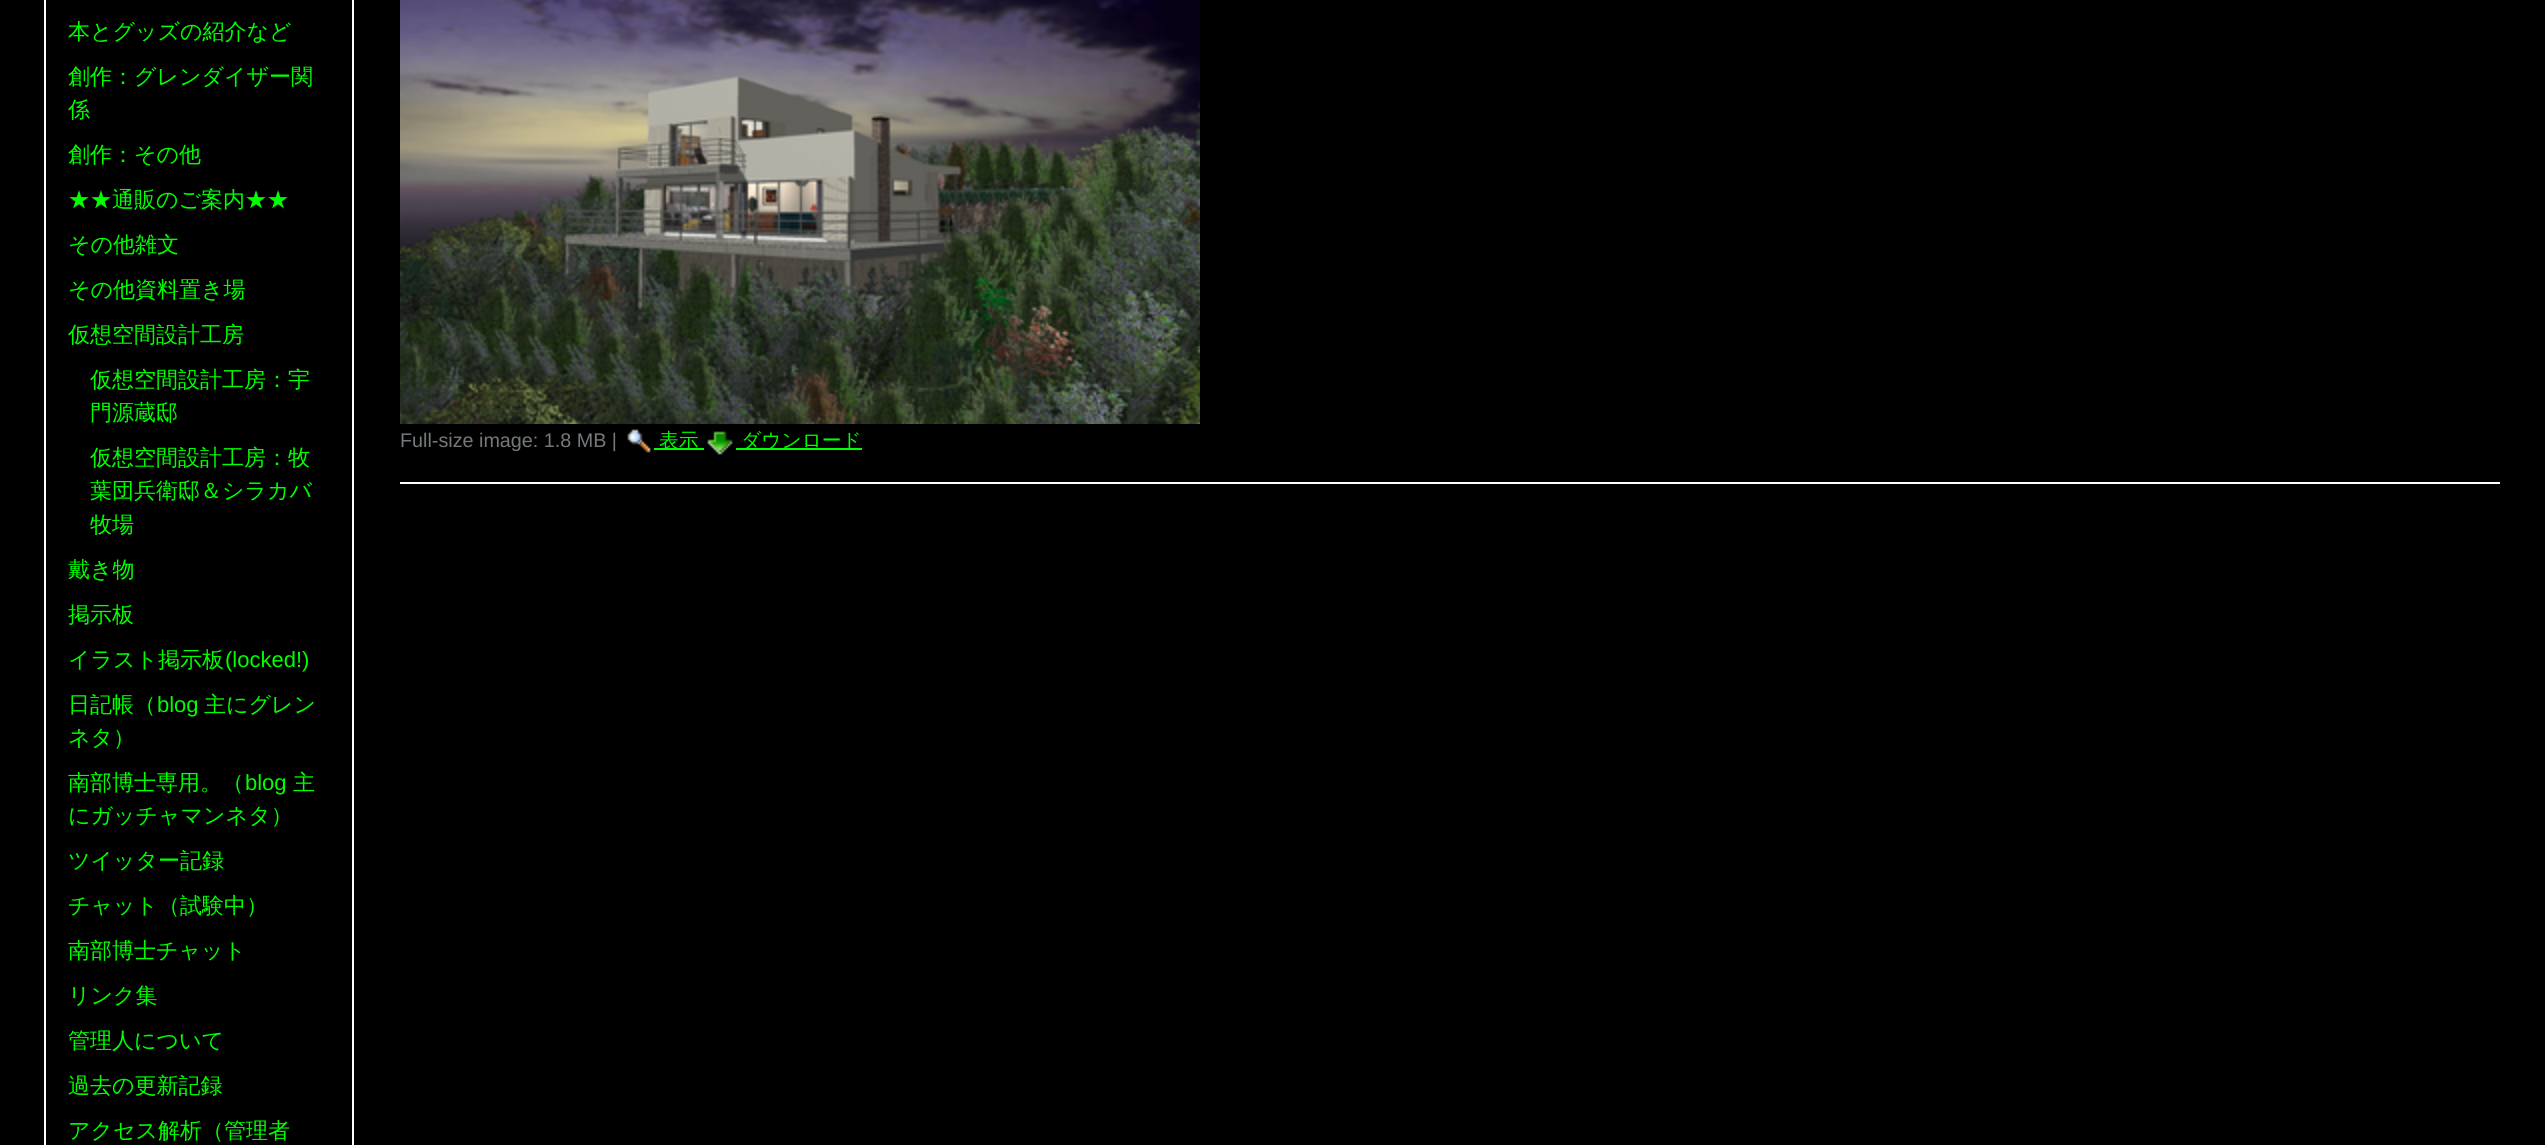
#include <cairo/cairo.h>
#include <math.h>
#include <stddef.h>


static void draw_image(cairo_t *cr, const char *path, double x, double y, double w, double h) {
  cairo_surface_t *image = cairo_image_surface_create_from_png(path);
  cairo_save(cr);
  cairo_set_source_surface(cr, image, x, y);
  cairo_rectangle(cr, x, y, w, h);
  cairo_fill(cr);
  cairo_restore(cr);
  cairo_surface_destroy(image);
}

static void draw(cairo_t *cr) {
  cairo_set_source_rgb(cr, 0, 0, 0);
  cairo_paint(cr);
  cairo_set_source_rgb(cr, 1, 1, 1);
  cairo_rectangle(cr, 352, 0, 2, 1145);
  cairo_fill(cr);
  cairo_rectangle(cr, 44, 0, 2, 1145);
  cairo_fill(cr);
  draw_image(cr, "images/1.png", 400, 0, 800, 424);
  draw_image(cr, "images/2.png", 627, 429, 24, 24);
  cairo_set_source_rgb(cr, 0, 1, 0);
  cairo_rectangle(cr, 654, 448, 50, 2);
  cairo_fill(cr);
  draw_image(cr, "images/3.png", 707, 431, 26, 24);
  cairo_rectangle(cr, 736, 448, 126, 2);
  cairo_fill(cr);
  cairo_set_source_rgb(cr, 1, 1, 1);
  cairo_rectangle(cr, 400, 482, 2100, 2);
  cairo_fill(cr);
  cairo_select_font_face(cr, "WenQuanYi Zen Hei Medium", CAIRO_FONT_SLANT_NORMAL, CAIRO_FONT_WEIGHT_NORMAL);
  cairo_set_font_size(cr, 22);
  cairo_set_source_rgb(cr, 0, 1, 0);
  cairo_move_to(cr, 68, 39);
  cairo_show_text(cr, "本とグッズの紹介など");
  cairo_move_to(cr, 68, 84);
  cairo_show_text(cr, "創作：グレンダイザー関");
  cairo_move_to(cr, 68, 117);
  cairo_show_text(cr, "係");
  cairo_move_to(cr, 68, 162);
  cairo_show_text(cr, "創作：その他");
  cairo_move_to(cr, 68, 207);
  cairo_show_text(cr, "★★通販のご案内★★");
  cairo_move_to(cr, 68, 252);
  cairo_show_text(cr, "その他雑文");
  cairo_move_to(cr, 68, 297);
  cairo_show_text(cr, "その他資料置き場");
  cairo_move_to(cr, 68, 342);
  cairo_show_text(cr, "仮想空間設計工房");
  cairo_move_to(cr, 90, 387);
  cairo_show_text(cr, "仮想空間設計工房：宇");
  cairo_move_to(cr, 90, 420);
  cairo_show_text(cr, "門源蔵邸");
  cairo_move_to(cr, 90, 465);
  cairo_show_text(cr, "仮想空間設計工房：牧");
  cairo_move_to(cr, 90, 498);
  cairo_show_text(cr, "葉団兵衛邸＆シラカバ");
  cairo_move_to(cr, 90, 532);
  cairo_show_text(cr, "牧場");
  cairo_move_to(cr, 68, 577);
  cairo_show_text(cr, "戴き物");
  cairo_move_to(cr, 68, 622);
  cairo_show_text(cr, "掲示板");
  cairo_move_to(cr, 68, 667);
  cairo_show_text(cr, "イラスト掲示板");
  cairo_select_font_face(cr, "Liberation Sans", CAIRO_FONT_SLANT_NORMAL, CAIRO_FONT_WEIGHT_NORMAL);
  cairo_move_to(cr, 225, 667);
  cairo_show_text(cr, "(locked!)");
  cairo_select_font_face(cr, "WenQuanYi Zen Hei Medium", CAIRO_FONT_SLANT_NORMAL, CAIRO_FONT_WEIGHT_NORMAL);
  cairo_move_to(cr, 68, 712);
  cairo_show_text(cr, "日記帳（");
  cairo_select_font_face(cr, "Liberation Sans", CAIRO_FONT_SLANT_NORMAL, CAIRO_FONT_WEIGHT_NORMAL);
  cairo_move_to(cr, 157, 712);
  cairo_show_text(cr, "blog");
  cairo_select_font_face(cr, "WenQuanYi Zen Hei Medium", CAIRO_FONT_SLANT_NORMAL, CAIRO_FONT_WEIGHT_NORMAL);
  cairo_move_to(cr, 204, 712);
  cairo_show_text(cr, "主にグレン");
  cairo_move_to(cr, 68, 745);
  cairo_show_text(cr, "ネタ）");
  cairo_move_to(cr, 68, 790);
  cairo_show_text(cr, "南部博士専用。（");
  cairo_select_font_face(cr, "Liberation Sans", CAIRO_FONT_SLANT_NORMAL, CAIRO_FONT_WEIGHT_NORMAL);
  cairo_move_to(cr, 245, 790);
  cairo_show_text(cr, "blog");
  cairo_select_font_face(cr, "WenQuanYi Zen Hei Medium", CAIRO_FONT_SLANT_NORMAL, CAIRO_FONT_WEIGHT_NORMAL);
  cairo_move_to(cr, 293, 790);
  cairo_show_text(cr, "主");
  cairo_move_to(cr, 68, 823);
  cairo_show_text(cr, "にガッチャマンネタ）");
  cairo_move_to(cr, 68, 868);
  cairo_show_text(cr, "ツイッター記録");
  cairo_move_to(cr, 68, 913);
  cairo_show_text(cr, "チャット（試験中）");
  cairo_move_to(cr, 68, 958);
  cairo_show_text(cr, "南部博士チャット");
  cairo_move_to(cr, 68, 1003);
  cairo_show_text(cr, "リンク集");
  cairo_move_to(cr, 68, 1048);
  cairo_show_text(cr, "管理人について");
  cairo_move_to(cr, 68, 1093);
  cairo_show_text(cr, "過去の更新記録");
  cairo_move_to(cr, 68, 1138);
  cairo_show_text(cr, "アクセス解析（管理者");
  cairo_select_font_face(cr, "Liberation Sans", CAIRO_FONT_SLANT_NORMAL, CAIRO_FONT_WEIGHT_NORMAL);
  cairo_set_font_size(cr, 19.75);
  cairo_set_source_rgb(cr, 118 / 255.0, 121 / 255.0, 124 / 255.0);
  cairo_move_to(cr, 400, 447);
  cairo_show_text(cr, "Full-size image: 1.8 MB |");
  cairo_select_font_face(cr, "WenQuanYi Zen Hei Medium", CAIRO_FONT_SLANT_NORMAL, CAIRO_FONT_WEIGHT_NORMAL);
  cairo_set_source_rgb(cr, 0, 1, 0);
  cairo_move_to(cr, 659, 447);
  cairo_show_text(cr, "表示");
  cairo_move_to(cr, 741, 447);
  cairo_show_text(cr, "ダウンロード");
}

int main(void) {
  cairo_surface_t *surface = cairo_image_surface_create(CAIRO_FORMAT_RGB24, 2545, 1145);
  cairo_t *cr = cairo_create(surface);
  cairo_font_options_t *options = cairo_font_options_create();
  cairo_font_options_set_hint_metrics(options, CAIRO_HINT_METRICS_OFF);
  cairo_font_options_set_hint_style(options, CAIRO_HINT_STYLE_NONE);
  cairo_set_font_options(cr, options);
  cairo_set_miter_limit(cr, 4);
  draw(cr);
  cairo_surface_write_to_png(surface, "out.png");
  cairo_font_options_destroy(options);
  cairo_destroy(cr);
  cairo_surface_destroy(surface);
  return 0;
}
